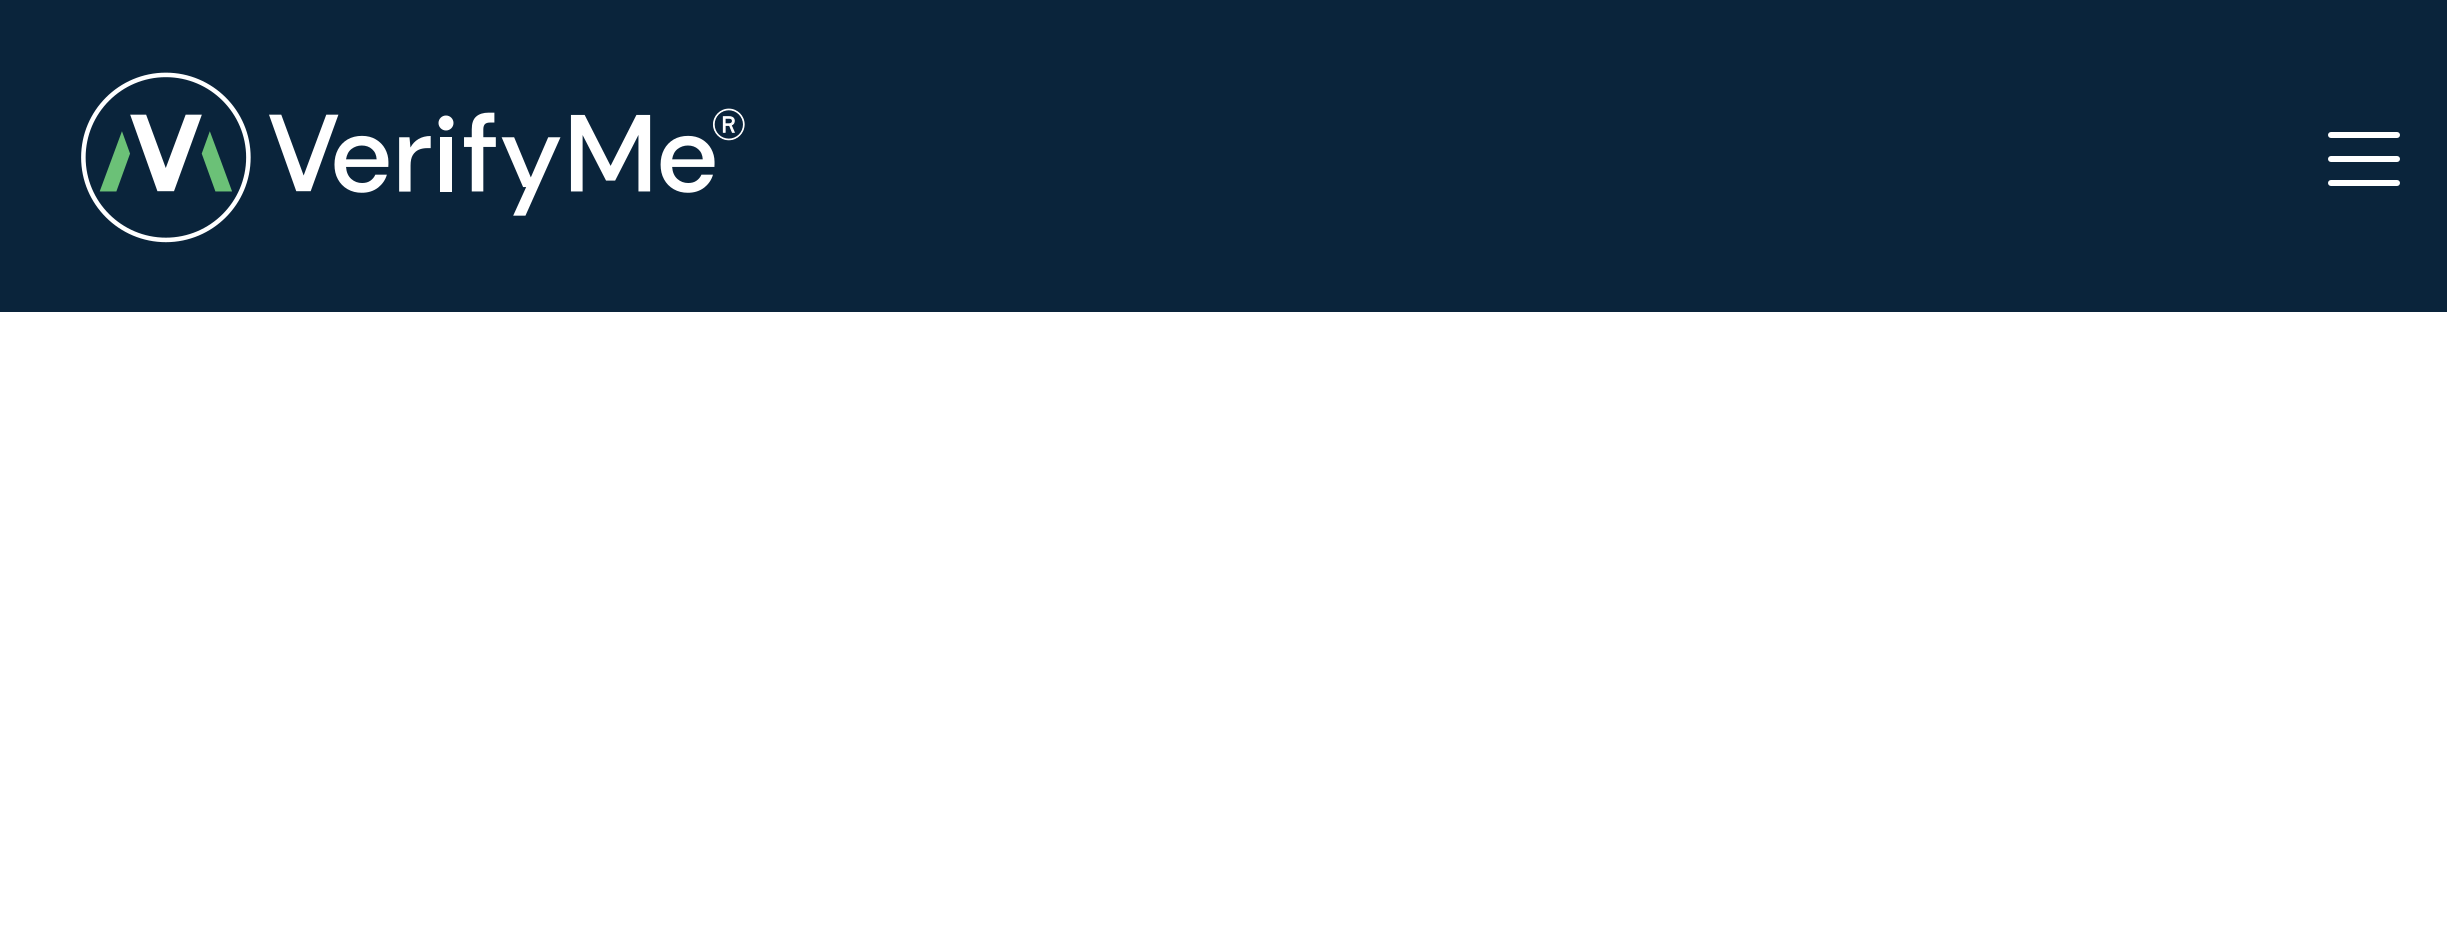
#include <cairo/cairo.h>
#include <math.h>
#include <stddef.h>


static void rounded_rect(cairo_t *cr, double x, double y, double w, double h, double r) {
  cairo_new_sub_path(cr);
  cairo_arc(cr, x + w - r, y + h - r, r, 0, M_PI / 2);
  cairo_arc(cr, x + r, y + h - r, r, M_PI / 2, M_PI);
  cairo_arc(cr, x + r, y + r, r, M_PI, 1.5 * M_PI);
  cairo_arc(cr, x + w - r, y + r, r, 1.5 * M_PI, 2 * M_PI);
  cairo_close_path(cr);
}

static void draw_image(cairo_t *cr, const char *path, double x, double y, double w, double h) {
  cairo_surface_t *image = cairo_image_surface_create_from_png(path);
  cairo_save(cr);
  cairo_set_source_surface(cr, image, x, y);
  cairo_rectangle(cr, x, y, w, h);
  cairo_fill(cr);
  cairo_restore(cr);
  cairo_surface_destroy(image);
}

static void draw(cairo_t *cr) {
  cairo_set_source_rgb(cr, 1, 1, 1);
  cairo_paint(cr);
  cairo_set_source_rgb(cr, 10 / 255.0, 36 / 255.0, 59 / 255.0);
  cairo_rectangle(cr, 0, 0, 2447, 312);
  cairo_fill(cr);
  draw_image(cr, "images/1.png", 81, 72, 664, 171);
  cairo_set_source_rgb(cr, 1, 1, 1);
  rounded_rect(cr, 2328, 132, 72, 6, 3);
  cairo_fill(cr);
  rounded_rect(cr, 2328, 156, 72, 6, 3);
  cairo_fill(cr);
  rounded_rect(cr, 2328, 180, 72, 6, 3);
  cairo_fill(cr);
}

int main(void) {
  cairo_surface_t *surface = cairo_image_surface_create(CAIRO_FORMAT_RGB24, 2447, 944);
  cairo_t *cr = cairo_create(surface);
  cairo_font_options_t *options = cairo_font_options_create();
  cairo_font_options_set_hint_metrics(options, CAIRO_HINT_METRICS_OFF);
  cairo_font_options_set_hint_style(options, CAIRO_HINT_STYLE_NONE);
  cairo_set_font_options(cr, options);
  cairo_set_miter_limit(cr, 4);
  draw(cr);
  cairo_surface_write_to_png(surface, "out.png");
  cairo_font_options_destroy(options);
  cairo_destroy(cr);
  cairo_surface_destroy(surface);
  return 0;
}
